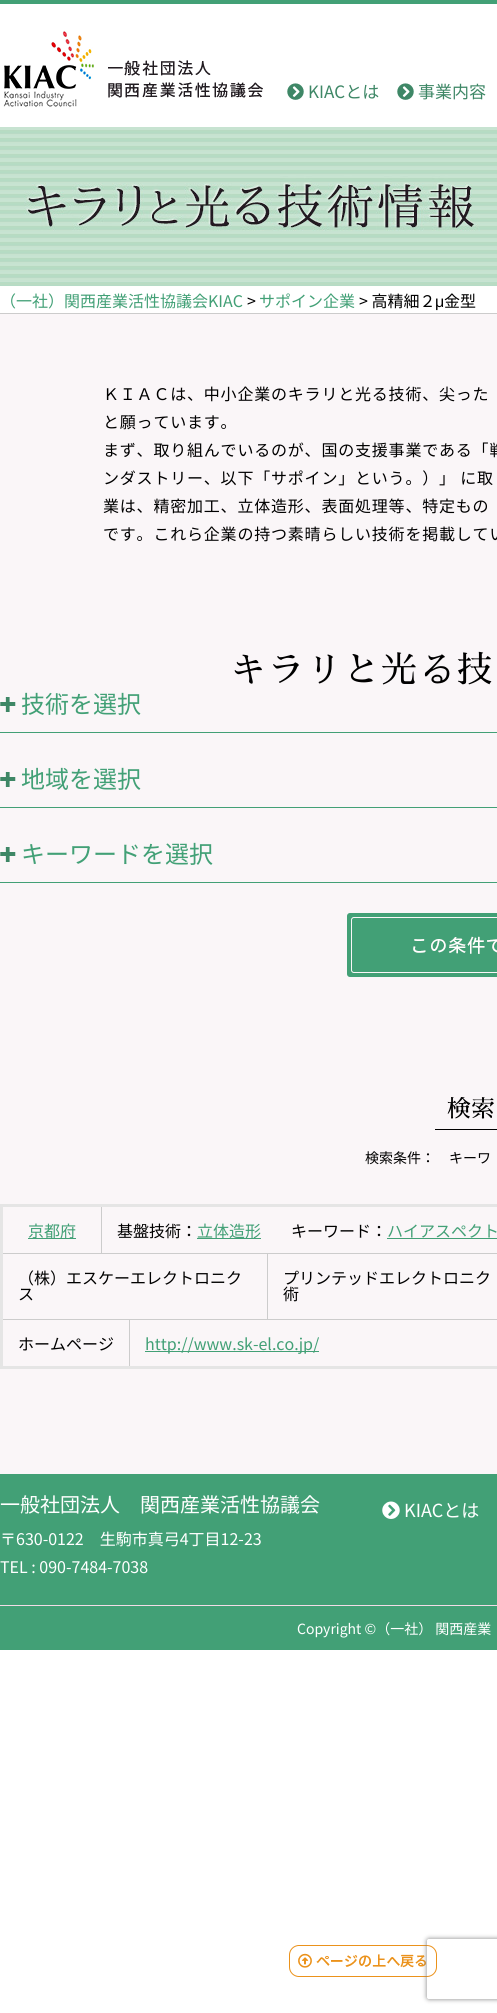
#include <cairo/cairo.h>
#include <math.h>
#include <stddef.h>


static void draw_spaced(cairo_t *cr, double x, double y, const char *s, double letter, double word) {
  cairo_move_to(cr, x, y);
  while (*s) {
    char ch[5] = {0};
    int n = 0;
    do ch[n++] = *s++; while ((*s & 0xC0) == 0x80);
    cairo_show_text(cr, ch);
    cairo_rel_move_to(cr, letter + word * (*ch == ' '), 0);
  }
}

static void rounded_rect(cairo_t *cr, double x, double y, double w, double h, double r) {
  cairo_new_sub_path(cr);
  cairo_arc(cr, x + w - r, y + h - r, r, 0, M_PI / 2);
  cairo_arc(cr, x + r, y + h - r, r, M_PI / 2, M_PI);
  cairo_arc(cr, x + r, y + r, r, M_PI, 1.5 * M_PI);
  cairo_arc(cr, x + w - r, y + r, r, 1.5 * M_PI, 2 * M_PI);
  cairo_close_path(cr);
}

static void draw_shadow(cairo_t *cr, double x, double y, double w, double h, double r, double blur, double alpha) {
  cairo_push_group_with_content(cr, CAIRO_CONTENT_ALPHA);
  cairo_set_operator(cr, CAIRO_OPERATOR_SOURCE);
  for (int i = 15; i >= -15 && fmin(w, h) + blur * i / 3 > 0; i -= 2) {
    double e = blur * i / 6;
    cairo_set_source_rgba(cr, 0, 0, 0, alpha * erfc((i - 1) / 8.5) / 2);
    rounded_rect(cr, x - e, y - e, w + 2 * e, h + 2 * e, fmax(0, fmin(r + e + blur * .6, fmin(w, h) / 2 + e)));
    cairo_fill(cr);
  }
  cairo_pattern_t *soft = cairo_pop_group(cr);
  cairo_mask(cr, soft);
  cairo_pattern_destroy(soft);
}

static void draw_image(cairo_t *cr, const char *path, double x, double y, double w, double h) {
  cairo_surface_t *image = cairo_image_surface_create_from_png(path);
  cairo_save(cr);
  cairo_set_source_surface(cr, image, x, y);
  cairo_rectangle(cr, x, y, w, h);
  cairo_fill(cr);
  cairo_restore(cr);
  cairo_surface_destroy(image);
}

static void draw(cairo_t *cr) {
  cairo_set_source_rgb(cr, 1, 1, 1);
  cairo_paint(cr);
  cairo_set_source_rgb(cr, 66 / 255.0, 160 / 255.0, 118 / 255.0);
  cairo_rectangle(cr, 0, 0, 497, 4);
  cairo_fill(cr);
  draw_image(cr, "images/1.png", 3, 31, 260, 76);
  draw_image(cr, "images/2.png", 287, 83, 17, 17);
  draw_image(cr, "images/2.png", 397, 83, 17, 17);
  draw_image(cr, "images/3.png", 0, 127, 497, 3);
  draw_image(cr, "images/4.png", 0, 130, 497, 157);
  cairo_set_source_rgb(cr, 204 / 255.0, 204 / 255.0, 204 / 255.0);
  cairo_rectangle(cr, 0, 313, 497, 1);
  cairo_fill(cr);
  cairo_set_source_rgb(cr, 250 / 255.0, 246 / 255.0, 248 / 255.0);
  cairo_rectangle(cr, 0, 314, 497, 1160);
  cairo_fill(cr);
  cairo_set_source_rgb(cr, 66 / 255.0, 160 / 255.0, 118 / 255.0);
  cairo_rectangle(cr, 0, 732, 497, 1);
  cairo_fill(cr);
  draw_image(cr, "images/5.png", 0, 697, 16, 15);
  cairo_rectangle(cr, 0, 807, 497, 1);
  cairo_fill(cr);
  draw_image(cr, "images/5.png", 0, 772, 16, 15);
  cairo_rectangle(cr, 0, 882, 497, 1);
  cairo_fill(cr);
  draw_image(cr, "images/5.png", 0, 847, 16, 15);
  draw_image(cr, "images/6.png", 347, 913, 150, 64);
  cairo_set_source_rgb(cr, 0, 0, 0);
  cairo_rectangle(cr, 435, 1129, 62, 1);
  cairo_fill(cr);
  cairo_rectangle(cr, 1.5, 1205.5, 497, 162);
  cairo_set_source_rgb(cr, 229 / 255.0, 229 / 255.0, 229 / 255.0);
  cairo_set_line_width(cr, 3);
  cairo_stroke(cr);
  cairo_set_source_rgb(cr, 66 / 255.0, 160 / 255.0, 118 / 255.0);
  cairo_rectangle(cr, 28, 1238, 48, 1);
  cairo_fill(cr);
  cairo_set_source_rgb(cr, 204 / 255.0, 204 / 255.0, 204 / 255.0);
  cairo_rectangle(cr, 101, 1207, 1, 46);
  cairo_fill(cr);
  cairo_set_source_rgb(cr, 66 / 255.0, 160 / 255.0, 118 / 255.0);
  cairo_rectangle(cr, 197, 1238, 64, 1);
  cairo_fill(cr);
  cairo_rectangle(cr, 387, 1238, 110, 1);
  cairo_fill(cr);
  cairo_set_source_rgb(cr, 204 / 255.0, 204 / 255.0, 204 / 255.0);
  cairo_rectangle(cr, 3, 1253, 494, 1);
  cairo_fill(cr);
  cairo_rectangle(cr, 267, 1254, 1, 65);
  cairo_fill(cr);
  cairo_rectangle(cr, 3, 1319, 494, 1);
  cairo_fill(cr);
  cairo_rectangle(cr, 129, 1320, 1, 46);
  cairo_fill(cr);
  cairo_set_source_rgb(cr, 66 / 255.0, 160 / 255.0, 118 / 255.0);
  cairo_rectangle(cr, 145, 1351, 174, 1);
  cairo_fill(cr);
  cairo_rectangle(cr, 0, 1474, 497, 176);
  cairo_fill(cr);
  cairo_set_source_rgb(cr, 242 / 255.0, 220 / 255.0, 231 / 255.0);
  cairo_rectangle(cr, 0, 1605, 497, 1);
  cairo_fill(cr);
  draw_image(cr, "images/7.png", 382, 1501, 18, 18);
  draw_image(cr, "images/8.png", 289, 1945, 148, 32);
  cairo_save(cr);
  cairo_set_fill_rule(cr, CAIRO_FILL_RULE_EVEN_ODD);
  cairo_new_path(cr);
  cairo_move_to(cr, 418, 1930);
  cairo_line_to(cr, 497, 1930);
  cairo_line_to(cr, 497, 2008);
  cairo_line_to(cr, 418, 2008);
  cairo_close_path(cr);
  cairo_move_to(cr, 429, 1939);
  cairo_line_to(cr, 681, 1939);
  cairo_curve_to(cr, 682, 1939, 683, 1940, 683, 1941);
  cairo_line_to(cr, 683, 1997);
  cairo_curve_to(cr, 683, 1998, 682, 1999, 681, 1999);
  cairo_line_to(cr, 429, 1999);
  cairo_curve_to(cr, 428, 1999, 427, 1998, 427, 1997);
  cairo_line_to(cr, 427, 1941);
  cairo_curve_to(cr, 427, 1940, 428, 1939, 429, 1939);
  cairo_close_path(cr);
  cairo_clip(cr);
  cairo_set_source_rgb(cr, 128 / 255.0, 128 / 255.0, 128 / 255.0);
  draw_shadow(cr, 427, 1939, 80, 60, 2, 2.5, 1);
  cairo_restore(cr);
  cairo_select_font_face(cr, "Noto Sans JP", CAIRO_FONT_SLANT_NORMAL, CAIRO_FONT_WEIGHT_NORMAL);
  cairo_set_font_size(cr, 17);
  cairo_set_source_rgb(cr, 62 / 255.0, 135 / 255.0, 102 / 255.0);
  cairo_move_to(cr, 308, 98);
  cairo_show_text(cr, "KIACとは");
  cairo_move_to(cr, 418, 98);
  cairo_show_text(cr, "事業内容");
  cairo_set_font_size(cr, 16);
  cairo_set_source_rgb(cr, 66 / 255.0, 160 / 255.0, 118 / 255.0);
  cairo_move_to(cr, 0, 307);
  cairo_show_text(cr, "（一社）関西産業活性協議会KIAC");
  cairo_set_source_rgb(cr, 0, 0, 0);
  cairo_move_to(cr, 247, 307);
  cairo_show_text(cr, ">");
  cairo_set_source_rgb(cr, 66 / 255.0, 160 / 255.0, 118 / 255.0);
  cairo_move_to(cr, 259, 307);
  cairo_show_text(cr, "サポイン企業");
  cairo_set_source_rgb(cr, 0, 0, 0);
  cairo_move_to(cr, 359, 307);
  cairo_show_text(cr, "> 高精細２");
  cairo_select_font_face(cr, "Liberation Sans", CAIRO_FONT_SLANT_NORMAL, CAIRO_FONT_WEIGHT_NORMAL);
  cairo_move_to(cr, 435, 307);
  cairo_show_text(cr, "μ");
  cairo_select_font_face(cr, "Noto Sans JP", CAIRO_FONT_SLANT_NORMAL, CAIRO_FONT_WEIGHT_NORMAL);
  cairo_move_to(cr, 444, 307);
  cairo_show_text(cr, "金型");
  draw_spaced(cr, 103, 400, "ＫＩＡＣは、中小企業のキラリと光る技術、尖った", 0.8, 0);
  draw_spaced(cr, 103, 428, "と願っています。", 0.8, 0);
  draw_spaced(cr, 103, 456, "まず、取り組んでいるのが、国の支援事業である「戦", 0.8, 0);
  draw_spaced(cr, 103, 484, "ンダストリー、以下「サポイン」という。）」 に取", 0.8, 0);
  draw_spaced(cr, 103, 512, "業は、精密加工、立体造形、表面処理等、特定もの", 0.8, 0);
  draw_spaced(cr, 103, 540, "です。これら企業の持つ素晴らしい技術を掲載してい", 0.8, 0);
  cairo_select_font_face(cr, "Sawarabi Mincho", CAIRO_FONT_SLANT_NORMAL, CAIRO_FONT_WEIGHT_NORMAL);
  cairo_set_font_size(cr, 36);
  draw_spaced(cr, 230, 682, "キラリと光る技", 1.75, 0);
  cairo_select_font_face(cr, "Noto Sans JP", CAIRO_FONT_SLANT_NORMAL, CAIRO_FONT_WEIGHT_NORMAL);
  cairo_set_font_size(cr, 24);
  cairo_set_source_rgb(cr, 66 / 255.0, 160 / 255.0, 118 / 255.0);
  cairo_move_to(cr, 21, 713);
  cairo_show_text(cr, "技術を選択");
  cairo_move_to(cr, 21, 788);
  cairo_show_text(cr, "地域を選択");
  cairo_move_to(cr, 21, 863);
  cairo_show_text(cr, "キーワードを選択");
  cairo_select_font_face(cr, "Sawarabi Mincho", CAIRO_FONT_SLANT_NORMAL, CAIRO_FONT_WEIGHT_NORMAL);
  cairo_set_source_rgb(cr, 0, 0, 0);
  cairo_move_to(cr, 447, 1117);
  cairo_show_text(cr, "検索");
  cairo_select_font_face(cr, "Noto Sans JP", CAIRO_FONT_SLANT_NORMAL, CAIRO_FONT_WEIGHT_NORMAL);
  cairo_set_font_size(cr, 14);
  cairo_move_to(cr, 365, 1163);
  cairo_show_text(cr, "検索条件：");
  cairo_move_to(cr, 449, 1163);
  cairo_show_text(cr, "キーワ");
  cairo_set_font_size(cr, 16);
  cairo_set_source_rgb(cr, 66 / 255.0, 160 / 255.0, 118 / 255.0);
  cairo_move_to(cr, 28, 1237);
  cairo_show_text(cr, "京都府");
  cairo_set_source_rgb(cr, 0, 0, 0);
  cairo_move_to(cr, 117, 1237);
  cairo_show_text(cr, "基盤技術：");
  cairo_set_source_rgb(cr, 66 / 255.0, 160 / 255.0, 118 / 255.0);
  cairo_move_to(cr, 197, 1237);
  cairo_show_text(cr, "立体造形");
  cairo_set_source_rgb(cr, 0, 0, 0);
  cairo_move_to(cr, 291, 1237);
  cairo_show_text(cr, "キーワード：");
  cairo_set_source_rgb(cr, 66 / 255.0, 160 / 255.0, 118 / 255.0);
  cairo_move_to(cr, 387, 1237);
  cairo_show_text(cr, "ハイアスペクト");
  cairo_set_source_rgb(cr, 0, 0, 0);
  cairo_move_to(cr, 18, 1284);
  cairo_show_text(cr, "（株）エスケーエレクトロニク");
  cairo_move_to(cr, 18, 1300);
  cairo_show_text(cr, "ス");
  cairo_move_to(cr, 283, 1284);
  cairo_show_text(cr, "プリンテッドエレクトロニク");
  cairo_move_to(cr, 283, 1300);
  cairo_show_text(cr, "術");
  cairo_move_to(cr, 18, 1350);
  cairo_show_text(cr, "ホームページ");
  cairo_set_source_rgb(cr, 66 / 255.0, 160 / 255.0, 118 / 255.0);
  cairo_move_to(cr, 145, 1350);
  cairo_show_text(cr, "http://www.sk-el.co.jp/");
  cairo_set_font_size(cr, 20);
  cairo_set_source_rgb(cr, 1, 1, 1);
  cairo_move_to(cr, 0, 1512);
  cairo_show_text(cr, "一般社団法人　関西産業活性協議会");
  cairo_set_font_size(cr, 16);
  cairo_move_to(cr, 0, 1545);
  cairo_show_text(cr, "〒630-0122　生駒市真弓4丁目12-23");
  cairo_move_to(cr, 0, 1573);
  cairo_show_text(cr, "TEL : 090-7484-7038");
  cairo_set_font_size(cr, 18);
  cairo_move_to(cr, 404, 1517);
  cairo_show_text(cr, "KIACとは");
  cairo_set_font_size(cr, 14);
  cairo_move_to(cr, 297, 1634);
  cairo_show_text(cr, "Copyright ©（一社） 関西産業");
}

int main(void) {
  cairo_surface_t *surface = cairo_image_surface_create(CAIRO_FORMAT_RGB24, 497, 2013);
  cairo_t *cr = cairo_create(surface);
  cairo_font_options_t *options = cairo_font_options_create();
  cairo_font_options_set_hint_metrics(options, CAIRO_HINT_METRICS_OFF);
  cairo_font_options_set_hint_style(options, CAIRO_HINT_STYLE_NONE);
  cairo_set_font_options(cr, options);
  cairo_set_miter_limit(cr, 4);
  draw(cr);
  cairo_surface_write_to_png(surface, "out.png");
  cairo_font_options_destroy(options);
  cairo_destroy(cr);
  cairo_surface_destroy(surface);
  return 0;
}
